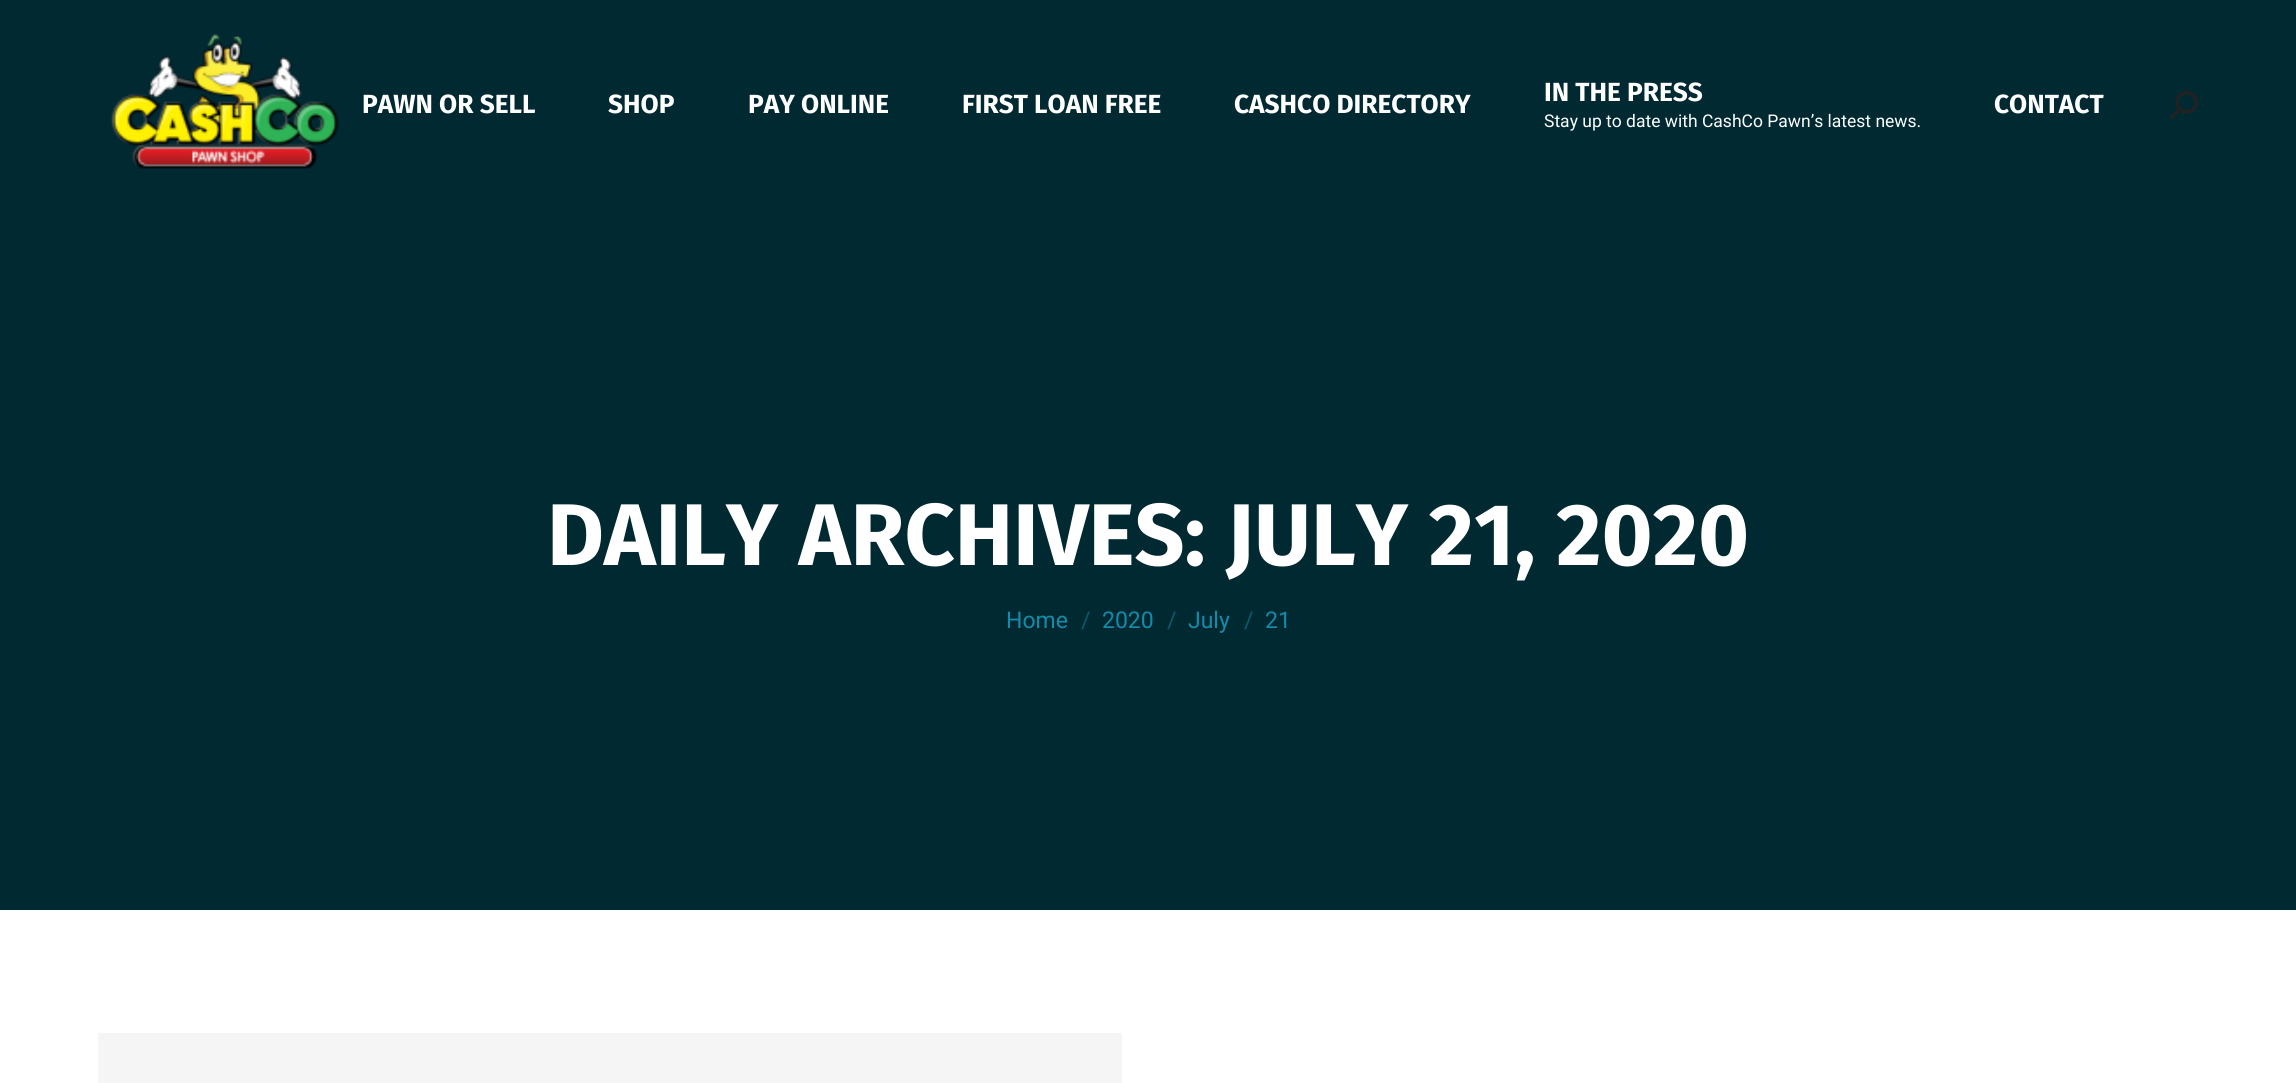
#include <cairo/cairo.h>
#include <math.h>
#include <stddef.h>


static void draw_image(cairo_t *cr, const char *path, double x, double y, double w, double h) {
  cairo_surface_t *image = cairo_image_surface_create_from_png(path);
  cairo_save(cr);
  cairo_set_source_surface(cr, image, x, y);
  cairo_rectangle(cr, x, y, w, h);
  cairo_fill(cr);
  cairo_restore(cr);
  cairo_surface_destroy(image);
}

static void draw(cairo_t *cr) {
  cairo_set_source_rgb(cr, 1, 1, 1);
  cairo_paint(cr);
  cairo_set_source_rgb(cr, 0, 41 / 255.0, 50 / 255.0);
  cairo_rectangle(cr, 0, 0, 2296, 910);
  cairo_fill(cr);
  draw_image(cr, "images/1.png", 111, 33, 228, 136);
  draw_image(cr, "images/2.png", 2170, 91, 28, 28);
  cairo_set_source_rgb(cr, 245 / 255.0, 245 / 255.0, 245 / 255.0);
  cairo_rectangle(cr, 98, 1033, 1024, 50);
  cairo_fill(cr);
  cairo_select_font_face(cr, "Fira Sans", CAIRO_FONT_SLANT_NORMAL, CAIRO_FONT_WEIGHT_BOLD);
  cairo_set_font_size(cr, 26.25);
  cairo_set_source_rgb(cr, 1, 1, 1);
  cairo_move_to(cr, 362, 113);
  cairo_show_text(cr, "PAWN OR SELL");
  cairo_move_to(cr, 608, 113);
  cairo_show_text(cr, "SHOP");
  cairo_move_to(cr, 748, 113);
  cairo_show_text(cr, "PAY ONLINE");
  cairo_move_to(cr, 962, 113);
  cairo_show_text(cr, "FIRST LOAN FREE");
  cairo_move_to(cr, 1234, 113);
  cairo_show_text(cr, "CASHCO DIRECTORY");
  cairo_move_to(cr, 1544, 101);
  cairo_show_text(cr, "IN THE PRESS");
  cairo_select_font_face(cr, "Roboto", CAIRO_FONT_SLANT_NORMAL, CAIRO_FONT_WEIGHT_NORMAL);
  cairo_set_font_size(cr, 17.5);
  cairo_move_to(cr, 1544, 127);
  cairo_show_text(cr, "Stay up to date with CashCo Pawn’s latest news.");
  cairo_select_font_face(cr, "Fira Sans", CAIRO_FONT_SLANT_NORMAL, CAIRO_FONT_WEIGHT_BOLD);
  cairo_set_font_size(cr, 26.25);
  cairo_move_to(cr, 1994, 113);
  cairo_show_text(cr, "CONTACT");
  cairo_set_font_size(cr, 87.5);
  cairo_move_to(cr, 547, 565);
  cairo_show_text(cr, "DAILY ARCHIVES: JULY 21, 2020");
  cairo_select_font_face(cr, "Roboto", CAIRO_FONT_SLANT_NORMAL, CAIRO_FONT_WEIGHT_NORMAL);
  cairo_set_font_size(cr, 23);
  cairo_set_source_rgb(cr, 20 / 255.0, 139 / 255.0, 169 / 255.0);
  cairo_move_to(cr, 1006, 628);
  cairo_show_text(cr, "Home");
  cairo_set_source_rgb(cr, 10 / 255.0, 90 / 255.0, 110 / 255.0);
  cairo_move_to(cr, 1081, 628);
  cairo_show_text(cr, "/");
  cairo_set_source_rgb(cr, 20 / 255.0, 139 / 255.0, 169 / 255.0);
  cairo_move_to(cr, 1102, 628);
  cairo_show_text(cr, "2020");
  cairo_set_source_rgb(cr, 10 / 255.0, 90 / 255.0, 110 / 255.0);
  cairo_move_to(cr, 1167, 628);
  cairo_show_text(cr, "/");
  cairo_set_source_rgb(cr, 20 / 255.0, 139 / 255.0, 169 / 255.0);
  cairo_move_to(cr, 1188, 628);
  cairo_show_text(cr, "July");
  cairo_set_source_rgb(cr, 10 / 255.0, 90 / 255.0, 110 / 255.0);
  cairo_move_to(cr, 1244, 628);
  cairo_show_text(cr, "/");
  cairo_set_source_rgb(cr, 20 / 255.0, 139 / 255.0, 169 / 255.0);
  cairo_move_to(cr, 1265, 628);
  cairo_show_text(cr, "21");
}

int main(void) {
  cairo_surface_t *surface = cairo_image_surface_create(CAIRO_FORMAT_RGB24, 2296, 1083);
  cairo_t *cr = cairo_create(surface);
  cairo_font_options_t *options = cairo_font_options_create();
  cairo_font_options_set_hint_metrics(options, CAIRO_HINT_METRICS_OFF);
  cairo_font_options_set_hint_style(options, CAIRO_HINT_STYLE_NONE);
  cairo_set_font_options(cr, options);
  cairo_set_miter_limit(cr, 4);
  draw(cr);
  cairo_surface_write_to_png(surface, "out.png");
  cairo_font_options_destroy(options);
  cairo_destroy(cr);
  cairo_surface_destroy(surface);
  return 0;
}
